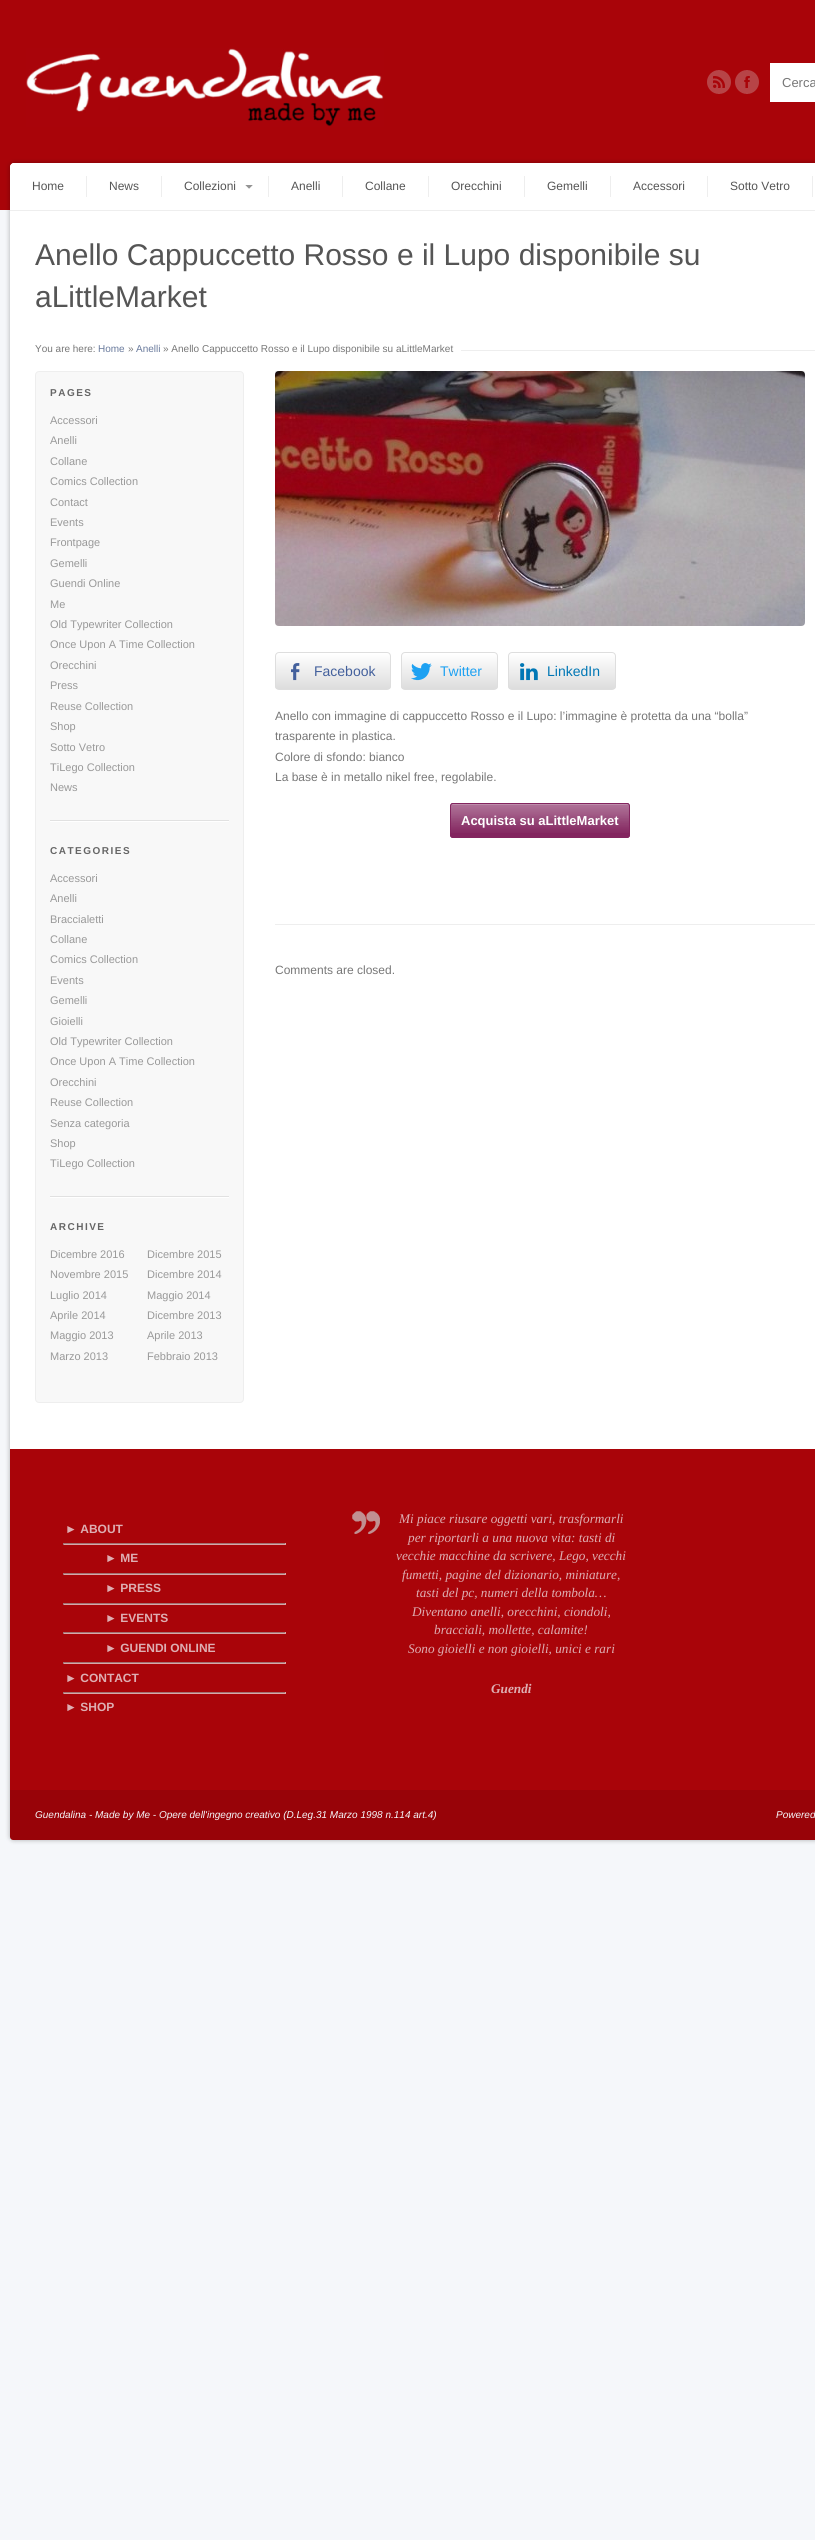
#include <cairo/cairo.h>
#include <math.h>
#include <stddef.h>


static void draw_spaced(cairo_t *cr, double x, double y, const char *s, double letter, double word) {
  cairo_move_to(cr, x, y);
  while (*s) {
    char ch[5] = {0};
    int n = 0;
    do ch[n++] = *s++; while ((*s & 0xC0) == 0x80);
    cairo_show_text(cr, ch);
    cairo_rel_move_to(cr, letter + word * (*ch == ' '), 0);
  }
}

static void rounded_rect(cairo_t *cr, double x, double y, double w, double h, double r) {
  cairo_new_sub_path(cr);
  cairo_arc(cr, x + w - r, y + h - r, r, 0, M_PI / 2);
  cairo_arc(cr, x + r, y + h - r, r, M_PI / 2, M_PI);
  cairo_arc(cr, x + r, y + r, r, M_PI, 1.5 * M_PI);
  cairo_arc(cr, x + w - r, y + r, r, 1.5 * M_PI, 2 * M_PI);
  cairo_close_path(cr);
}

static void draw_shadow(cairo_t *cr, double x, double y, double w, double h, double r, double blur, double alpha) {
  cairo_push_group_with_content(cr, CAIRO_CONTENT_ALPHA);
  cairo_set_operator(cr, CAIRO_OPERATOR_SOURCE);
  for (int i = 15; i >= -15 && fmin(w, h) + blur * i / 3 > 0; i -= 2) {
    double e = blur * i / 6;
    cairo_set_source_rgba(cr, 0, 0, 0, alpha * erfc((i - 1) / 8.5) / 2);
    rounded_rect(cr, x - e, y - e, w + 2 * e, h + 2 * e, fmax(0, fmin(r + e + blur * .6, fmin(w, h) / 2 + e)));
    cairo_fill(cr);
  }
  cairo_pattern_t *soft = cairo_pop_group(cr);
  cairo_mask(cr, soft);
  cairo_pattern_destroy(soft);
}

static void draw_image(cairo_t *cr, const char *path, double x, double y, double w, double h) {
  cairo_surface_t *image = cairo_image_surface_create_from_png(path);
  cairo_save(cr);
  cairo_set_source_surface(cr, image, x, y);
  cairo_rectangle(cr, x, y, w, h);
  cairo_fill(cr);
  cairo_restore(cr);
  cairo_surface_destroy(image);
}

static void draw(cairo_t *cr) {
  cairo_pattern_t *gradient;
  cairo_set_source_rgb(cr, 245 / 255.0, 247 / 255.0, 250 / 255.0);
  cairo_paint(cr);
  cairo_set_source_rgb(cr, 169 / 255.0, 4 / 255.0, 9 / 255.0);
  cairo_rectangle(cr, 0, 0, 815, 210);
  cairo_fill(cr);
  draw_image(cr, "images/1.png", 26, 48, 358, 79);
  draw_image(cr, "images/2.png", 707, 70, 24, 24);
  draw_image(cr, "images/3.png", 735, 70, 24, 24);
  cairo_set_source_rgb(cr, 1, 1, 1);
  cairo_rectangle(cr, 770, 63, 45, 39);
  cairo_fill(cr);
  cairo_set_source_rgb(cr, 0, 0, 0);
  draw_shadow(cr, 10, 163, 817, 1677, 4, 2.5, 0.3);
  cairo_set_source_rgb(cr, 1, 1, 1);
  rounded_rect(cr, 10, 163, 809, 1677, 4);
  cairo_fill(cr);
  cairo_set_source_rgb(cr, 238 / 255.0, 238 / 255.0, 238 / 255.0);
  cairo_rectangle(cr, 10, 210, 805, 1);
  cairo_fill(cr);
  cairo_set_source_rgb(cr, 1, 1, 1);
  cairo_new_path(cr);
  cairo_move_to(cr, 14, 163);
  cairo_line_to(cr, 815, 163);
  cairo_curve_to(cr, 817, 163, 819, 165, 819, 167);
  cairo_line_to(cr, 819, 210);
  cairo_line_to(cr, 10, 210);
  cairo_line_to(cr, 10, 167);
  cairo_curve_to(cr, 10, 165, 12, 163, 14, 163);
  cairo_close_path(cr);
  cairo_fill(cr);
  cairo_set_source_rgb(cr, 238 / 255.0, 238 / 255.0, 238 / 255.0);
  cairo_rectangle(cr, 86, 176, 1, 21);
  cairo_fill(cr);
  cairo_rectangle(cr, 161, 176, 1, 21);
  cairo_fill(cr);
  cairo_rectangle(cr, 268, 176, 1, 21);
  cairo_fill(cr);
  draw_image(cr, "images/4.png", 245, 185, 8, 4);
  cairo_rectangle(cr, 342, 176, 1, 21);
  cairo_fill(cr);
  cairo_rectangle(cr, 428, 176, 1, 21);
  cairo_fill(cr);
  cairo_rectangle(cr, 524, 176, 1, 21);
  cairo_fill(cr);
  cairo_rectangle(cr, 610, 176, 1, 21);
  cairo_fill(cr);
  cairo_rectangle(cr, 707, 176, 1, 21);
  cairo_fill(cr);
  cairo_rectangle(cr, 812, 176, 1, 21);
  cairo_fill(cr);
  cairo_rectangle(cr, 461, 350, 354, 1);
  cairo_fill(cr);
  cairo_set_source_rgb(cr, 248 / 255.0, 248 / 255.0, 248 / 255.0);
  rounded_rect(cr, 35.5, 371.5, 208, 1031, 3.5);
  cairo_fill_preserve(cr);
  cairo_set_source_rgb(cr, 238 / 255.0, 238 / 255.0, 238 / 255.0);
  cairo_set_line_width(cr, 1);
  cairo_stroke(cr);
  cairo_set_source_rgb(cr, 225 / 255.0, 225 / 255.0, 225 / 255.0);
  cairo_rectangle(cr, 50, 820, 179, 1);
  cairo_fill(cr);
  cairo_set_source_rgb(cr, 1, 1, 1);
  cairo_rectangle(cr, 50, 821, 179, 1);
  cairo_fill(cr);
  cairo_set_source_rgb(cr, 225 / 255.0, 225 / 255.0, 225 / 255.0);
  cairo_rectangle(cr, 50, 1196, 179, 1);
  cairo_fill(cr);
  cairo_set_source_rgb(cr, 1, 1, 1);
  cairo_rectangle(cr, 50, 1197, 179, 1);
  cairo_fill(cr);
  cairo_set_source_rgb(cr, 238 / 255.0, 238 / 255.0, 238 / 255.0);
  cairo_rectangle(cr, 275, 371, 530, 1);
  cairo_fill(cr);
  draw_image(cr, "images/5.png", 275, 371, 530, 255);
  cairo_save(cr);
  rounded_rect(cr, 275, 652, 116, 38, 4);
  cairo_clip(cr);
  gradient = cairo_pattern_create_linear(333, 653, 333, 689);
  cairo_pattern_add_color_stop_rgba(gradient, 0, 1, 1, 1, 1);
  cairo_pattern_add_color_stop_rgba(gradient, 1, 221 / 255.0, 221 / 255.0, 221 / 255.0, 1);
  cairo_set_source(cr, gradient);
  cairo_pattern_destroy(gradient);
  cairo_rectangle(cr, 275, 653, 116, 36);
  cairo_fill(cr);
  cairo_restore(cr);
  rounded_rect(cr, 275.5, 652.5, 115, 37, 3.5);
  cairo_set_source_rgb(cr, 222 / 255.0, 222 / 255.0, 222 / 255.0);
  cairo_stroke(cr);
  draw_image(cr, "images/6.png", 291, 663, 9, 18);
  cairo_save(cr);
  rounded_rect(cr, 401, 652, 97, 38, 4);
  cairo_clip(cr);
  gradient = cairo_pattern_create_linear(450, 653, 450, 689);
  cairo_pattern_add_color_stop_rgba(gradient, 0, 1, 1, 1, 1);
  cairo_pattern_add_color_stop_rgba(gradient, 1, 221 / 255.0, 221 / 255.0, 221 / 255.0, 1);
  cairo_set_source(cr, gradient);
  cairo_pattern_destroy(gradient);
  cairo_rectangle(cr, 401, 653, 97, 36);
  cairo_fill(cr);
  cairo_restore(cr);
  rounded_rect(cr, 401.5, 652.5, 96, 37, 3.5);
  cairo_stroke(cr);
  draw_image(cr, "images/7.png", 411, 663, 21, 18);
  cairo_save(cr);
  rounded_rect(cr, 508, 652, 108, 38, 4);
  cairo_clip(cr);
  gradient = cairo_pattern_create_linear(562, 653, 562, 689);
  cairo_pattern_add_color_stop_rgba(gradient, 0, 1, 1, 1, 1);
  cairo_pattern_add_color_stop_rgba(gradient, 1, 221 / 255.0, 221 / 255.0, 221 / 255.0, 1);
  cairo_set_source(cr, gradient);
  cairo_pattern_destroy(gradient);
  cairo_rectangle(cr, 508, 653, 108, 36);
  cairo_fill(cr);
  cairo_restore(cr);
  rounded_rect(cr, 508.5, 652.5, 107, 37, 3.5);
  cairo_stroke(cr);
  draw_image(cr, "images/8.png", 520, 663, 18, 18);
  cairo_set_source_rgb(cr, 131 / 255.0, 37 / 255.0, 95 / 255.0);
  rounded_rect(cr, 450, 803, 180, 35, 3);
  cairo_fill(cr);
  draw_image(cr, "images/9.png", 450, 804, 180, 29);
  rounded_rect(cr, 450.5, 803.5, 179, 34, 2.5);
  cairo_stroke(cr);
  cairo_set_source_rgb(cr, 238 / 255.0, 238 / 255.0, 238 / 255.0);
  cairo_rectangle(cr, 275, 924, 540, 1);
  cairo_fill(cr);
  cairo_set_source_rgb(cr, 169 / 255.0, 4 / 255.0, 9 / 255.0);
  cairo_rectangle(cr, 10, 1449, 805, 341);
  cairo_fill(cr);
  cairo_set_source_rgb(cr, 162 / 255.0, 113 / 255.0, 114 / 255.0);
  cairo_rectangle(cr, 63, 1543, 223, 1);
  cairo_fill(cr);
  cairo_set_source_rgb(cr, 217 / 255.0, 168 / 255.0, 169 / 255.0);
  cairo_rectangle(cr, 285, 1543, 1, 2);
  cairo_fill(cr);
  cairo_rectangle(cr, 63, 1544, 223, 1);
  cairo_fill(cr);
  cairo_set_source_rgb(cr, 162 / 255.0, 113 / 255.0, 114 / 255.0);
  cairo_rectangle(cr, 63, 1543, 1, 2);
  cairo_fill(cr);
  cairo_rectangle(cr, 63, 1573, 223, 1);
  cairo_fill(cr);
  cairo_set_source_rgb(cr, 217 / 255.0, 168 / 255.0, 169 / 255.0);
  cairo_rectangle(cr, 285, 1573, 1, 2);
  cairo_fill(cr);
  cairo_rectangle(cr, 63, 1574, 223, 1);
  cairo_fill(cr);
  cairo_set_source_rgb(cr, 162 / 255.0, 113 / 255.0, 114 / 255.0);
  cairo_rectangle(cr, 63, 1573, 1, 2);
  cairo_fill(cr);
  cairo_rectangle(cr, 63, 1603, 223, 1);
  cairo_fill(cr);
  cairo_set_source_rgb(cr, 217 / 255.0, 168 / 255.0, 169 / 255.0);
  cairo_rectangle(cr, 285, 1603, 1, 2);
  cairo_fill(cr);
  cairo_rectangle(cr, 63, 1604, 223, 1);
  cairo_fill(cr);
  cairo_set_source_rgb(cr, 162 / 255.0, 113 / 255.0, 114 / 255.0);
  cairo_rectangle(cr, 63, 1603, 1, 2);
  cairo_fill(cr);
  cairo_rectangle(cr, 63, 1632, 223, 1);
  cairo_fill(cr);
  cairo_set_source_rgb(cr, 217 / 255.0, 168 / 255.0, 169 / 255.0);
  cairo_rectangle(cr, 285, 1632, 1, 2);
  cairo_fill(cr);
  cairo_rectangle(cr, 63, 1633, 223, 1);
  cairo_fill(cr);
  cairo_set_source_rgb(cr, 162 / 255.0, 113 / 255.0, 114 / 255.0);
  cairo_rectangle(cr, 63, 1632, 1, 2);
  cairo_fill(cr);
  cairo_rectangle(cr, 63, 1662, 223, 1);
  cairo_fill(cr);
  cairo_set_source_rgb(cr, 217 / 255.0, 168 / 255.0, 169 / 255.0);
  cairo_rectangle(cr, 285, 1662, 1, 2);
  cairo_fill(cr);
  cairo_rectangle(cr, 63, 1663, 223, 1);
  cairo_fill(cr);
  cairo_set_source_rgb(cr, 162 / 255.0, 113 / 255.0, 114 / 255.0);
  cairo_rectangle(cr, 63, 1662, 1, 2);
  cairo_fill(cr);
  cairo_rectangle(cr, 63, 1692, 223, 1);
  cairo_fill(cr);
  cairo_set_source_rgb(cr, 217 / 255.0, 168 / 255.0, 169 / 255.0);
  cairo_rectangle(cr, 285, 1692, 1, 2);
  cairo_fill(cr);
  cairo_rectangle(cr, 63, 1693, 223, 1);
  cairo_fill(cr);
  cairo_set_source_rgb(cr, 162 / 255.0, 113 / 255.0, 114 / 255.0);
  cairo_rectangle(cr, 63, 1692, 1, 2);
  cairo_fill(cr);
  draw_image(cr, "images/10.png", 352, 1511, 28, 23);
  cairo_set_source_rgb(cr, 152 / 255.0, 3 / 255.0, 8 / 255.0);
  cairo_new_path(cr);
  cairo_move_to(cr, 10, 1790);
  cairo_line_to(cr, 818, 1790);
  cairo_line_to(cr, 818, 1837);
  cairo_curve_to(cr, 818, 1838.5, 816.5, 1840, 815, 1840);
  cairo_line_to(cr, 13, 1840);
  cairo_curve_to(cr, 11.5, 1840, 10, 1838.5, 10, 1837);
  cairo_close_path(cr);
  cairo_fill(cr);
  cairo_select_font_face(cr, "Liberation Sans", CAIRO_FONT_SLANT_NORMAL, CAIRO_FONT_WEIGHT_NORMAL);
  cairo_set_font_size(cr, 13);
  cairo_set_source_rgb(cr, 119 / 255.0, 119 / 255.0, 119 / 255.0);
  cairo_move_to(cr, 782, 87);
  cairo_show_text(cr, "Cerca");
  cairo_set_font_size(cr, 12);
  cairo_set_source_rgb(cr, 85 / 255.0, 85 / 255.0, 85 / 255.0);
  cairo_move_to(cr, 32, 190);
  cairo_show_text(cr, "Home");
  cairo_move_to(cr, 109, 190);
  cairo_show_text(cr, "News");
  cairo_move_to(cr, 184, 190);
  cairo_show_text(cr, "Collezioni");
  cairo_move_to(cr, 291, 190);
  cairo_show_text(cr, "Anelli");
  cairo_move_to(cr, 365, 190);
  cairo_show_text(cr, "Collane");
  cairo_move_to(cr, 451, 190);
  cairo_show_text(cr, "Orecchini");
  cairo_move_to(cr, 547, 190);
  cairo_show_text(cr, "Gemelli");
  cairo_move_to(cr, 633, 190);
  cairo_show_text(cr, "Accessori");
  cairo_move_to(cr, 730, 190);
  cairo_show_text(cr, "Sotto Vetro");
  cairo_set_font_size(cr, 30);
  cairo_move_to(cr, 35, 265);
  cairo_show_text(cr, "Anello Cappuccetto Rosso e il Lupo disponibile su");
  cairo_move_to(cr, 35, 307);
  cairo_show_text(cr, "aLittleMarket");
  cairo_set_font_size(cr, 10);
  cairo_set_source_rgb(cr, 119 / 255.0, 119 / 255.0, 119 / 255.0);
  cairo_move_to(cr, 35, 352);
  cairo_show_text(cr, "You are here:");
  cairo_set_source_rgb(cr, 105 / 255.0, 122 / 255.0, 156 / 255.0);
  cairo_move_to(cr, 98, 352);
  cairo_show_text(cr, "Home");
  cairo_set_source_rgb(cr, 119 / 255.0, 119 / 255.0, 119 / 255.0);
  cairo_move_to(cr, 128, 352);
  cairo_show_text(cr, "»");
  cairo_set_source_rgb(cr, 105 / 255.0, 122 / 255.0, 156 / 255.0);
  cairo_move_to(cr, 136, 352);
  cairo_show_text(cr, "Anelli");
  cairo_set_source_rgb(cr, 119 / 255.0, 119 / 255.0, 119 / 255.0);
  cairo_move_to(cr, 163, 352);
  cairo_show_text(cr, "» Anello Cappuccetto Rosso e il Lupo disponibile su aLittleMarket");
  cairo_select_font_face(cr, "Liberation Sans", CAIRO_FONT_SLANT_NORMAL, CAIRO_FONT_WEIGHT_BOLD);
  cairo_set_source_rgb(cr, 102 / 255.0, 102 / 255.0, 102 / 255.0);
  draw_spaced(cr, 50, 396, "PAGES", 1.5, 0);
  cairo_select_font_face(cr, "Liberation Sans", CAIRO_FONT_SLANT_NORMAL, CAIRO_FONT_WEIGHT_NORMAL);
  cairo_set_font_size(cr, 11);
  cairo_set_source_rgb(cr, 153 / 255.0, 153 / 255.0, 153 / 255.0);
  cairo_move_to(cr, 50, 424);
  cairo_show_text(cr, "Accessori");
  cairo_move_to(cr, 50, 444);
  cairo_show_text(cr, "Anelli");
  cairo_move_to(cr, 50, 465);
  cairo_show_text(cr, "Collane");
  cairo_move_to(cr, 50, 485);
  cairo_show_text(cr, "Comics Collection");
  cairo_move_to(cr, 50, 506);
  cairo_show_text(cr, "Contact");
  cairo_move_to(cr, 50, 526);
  cairo_show_text(cr, "Events");
  cairo_move_to(cr, 50, 546);
  cairo_show_text(cr, "Frontpage");
  cairo_move_to(cr, 50, 567);
  cairo_show_text(cr, "Gemelli");
  cairo_move_to(cr, 50, 587);
  cairo_show_text(cr, "Guendi Online");
  cairo_move_to(cr, 50, 608);
  cairo_show_text(cr, "Me");
  cairo_move_to(cr, 50, 628);
  cairo_show_text(cr, "Old Typewriter Collection");
  cairo_move_to(cr, 50, 648);
  cairo_show_text(cr, "Once Upon A Time Collection");
  cairo_move_to(cr, 50, 669);
  cairo_show_text(cr, "Orecchini");
  cairo_move_to(cr, 50, 689);
  cairo_show_text(cr, "Press");
  cairo_move_to(cr, 50, 710);
  cairo_show_text(cr, "Reuse Collection");
  cairo_move_to(cr, 50, 730);
  cairo_show_text(cr, "Shop");
  cairo_move_to(cr, 50, 751);
  cairo_show_text(cr, "Sotto Vetro");
  cairo_move_to(cr, 50, 771);
  cairo_show_text(cr, "TiLego Collection");
  cairo_move_to(cr, 50, 791);
  cairo_show_text(cr, "News");
  cairo_select_font_face(cr, "Liberation Sans", CAIRO_FONT_SLANT_NORMAL, CAIRO_FONT_WEIGHT_BOLD);
  cairo_set_font_size(cr, 10);
  cairo_set_source_rgb(cr, 102 / 255.0, 102 / 255.0, 102 / 255.0);
  draw_spaced(cr, 50, 854, "CATEGORIES", 1.5, 0);
  cairo_select_font_face(cr, "Liberation Sans", CAIRO_FONT_SLANT_NORMAL, CAIRO_FONT_WEIGHT_NORMAL);
  cairo_set_font_size(cr, 11);
  cairo_set_source_rgb(cr, 153 / 255.0, 153 / 255.0, 153 / 255.0);
  cairo_move_to(cr, 50, 882);
  cairo_show_text(cr, "Accessori");
  cairo_move_to(cr, 50, 902);
  cairo_show_text(cr, "Anelli");
  cairo_move_to(cr, 50, 923);
  cairo_show_text(cr, "Braccialetti");
  cairo_move_to(cr, 50, 943);
  cairo_show_text(cr, "Collane");
  cairo_move_to(cr, 50, 963);
  cairo_show_text(cr, "Comics Collection");
  cairo_move_to(cr, 50, 984);
  cairo_show_text(cr, "Events");
  cairo_move_to(cr, 50, 1004);
  cairo_show_text(cr, "Gemelli");
  cairo_move_to(cr, 50, 1025);
  cairo_show_text(cr, "Gioielli");
  cairo_move_to(cr, 50, 1045);
  cairo_show_text(cr, "Old Typewriter Collection");
  cairo_move_to(cr, 50, 1065);
  cairo_show_text(cr, "Once Upon A Time Collection");
  cairo_move_to(cr, 50, 1086);
  cairo_show_text(cr, "Orecchini");
  cairo_move_to(cr, 50, 1106);
  cairo_show_text(cr, "Reuse Collection");
  cairo_move_to(cr, 50, 1127);
  cairo_show_text(cr, "Senza categoria");
  cairo_move_to(cr, 50, 1147);
  cairo_show_text(cr, "Shop");
  cairo_move_to(cr, 50, 1167);
  cairo_show_text(cr, "TiLego Collection");
  cairo_select_font_face(cr, "Liberation Sans", CAIRO_FONT_SLANT_NORMAL, CAIRO_FONT_WEIGHT_BOLD);
  cairo_set_font_size(cr, 10);
  cairo_set_source_rgb(cr, 102 / 255.0, 102 / 255.0, 102 / 255.0);
  draw_spaced(cr, 50, 1230, "ARCHIVE", 1.5, 0);
  cairo_select_font_face(cr, "Liberation Sans", CAIRO_FONT_SLANT_NORMAL, CAIRO_FONT_WEIGHT_NORMAL);
  cairo_set_font_size(cr, 11);
  cairo_set_source_rgb(cr, 153 / 255.0, 153 / 255.0, 153 / 255.0);
  cairo_move_to(cr, 50, 1258);
  cairo_show_text(cr, "Dicembre 2016");
  cairo_move_to(cr, 147, 1258);
  cairo_show_text(cr, "Dicembre 2015");
  cairo_move_to(cr, 50, 1278);
  cairo_show_text(cr, "Novembre 2015");
  cairo_move_to(cr, 147, 1278);
  cairo_show_text(cr, "Dicembre 2014");
  cairo_move_to(cr, 50, 1299);
  cairo_show_text(cr, "Luglio 2014");
  cairo_move_to(cr, 147, 1299);
  cairo_show_text(cr, "Maggio 2014");
  cairo_move_to(cr, 50, 1319);
  cairo_show_text(cr, "Aprile 2014");
  cairo_move_to(cr, 147, 1319);
  cairo_show_text(cr, "Dicembre 2013");
  cairo_move_to(cr, 50, 1339);
  cairo_show_text(cr, "Maggio 2013");
  cairo_move_to(cr, 147, 1339);
  cairo_show_text(cr, "Aprile 2013");
  cairo_move_to(cr, 50, 1360);
  cairo_show_text(cr, "Marzo 2013");
  cairo_move_to(cr, 147, 1360);
  cairo_show_text(cr, "Febbraio 2013");
  cairo_set_font_size(cr, 14);
  cairo_set_source_rgb(cr, 67 / 255.0, 96 / 255.0, 156 / 255.0);
  cairo_move_to(cr, 314, 676);
  cairo_show_text(cr, "Facebook");
  cairo_set_source_rgb(cr, 29 / 255.0, 161 / 255.0, 242 / 255.0);
  cairo_move_to(cr, 440, 676);
  cairo_show_text(cr, "Twitter");
  cairo_set_source_rgb(cr, 0, 119 / 255.0, 181 / 255.0);
  cairo_move_to(cr, 547, 676);
  cairo_show_text(cr, "LinkedIn");
  cairo_set_font_size(cr, 12);
  cairo_set_source_rgb(cr, 119 / 255.0, 119 / 255.0, 119 / 255.0);
  cairo_move_to(cr, 275, 720);
  cairo_show_text(cr, "Anello con immagine di cappuccetto Rosso e il Lupo: l’immagine è protetta da una “bolla”");
  cairo_move_to(cr, 275, 740);
  cairo_show_text(cr, "trasparente in plastica.");
  cairo_move_to(cr, 275, 761);
  cairo_show_text(cr, "Colore di sfondo: bianco");
  cairo_move_to(cr, 275, 781);
  cairo_show_text(cr, "La base è in metallo nikel free, regolabile.");
  cairo_select_font_face(cr, "Liberation Sans", CAIRO_FONT_SLANT_NORMAL, CAIRO_FONT_WEIGHT_BOLD);
  cairo_set_font_size(cr, 13);
  cairo_set_source_rgb(cr, 1, 1, 1);
  cairo_move_to(cr, 461, 825);
  cairo_show_text(cr, "Acquista su aLittleMarket");
  cairo_select_font_face(cr, "Liberation Sans", CAIRO_FONT_SLANT_NORMAL, CAIRO_FONT_WEIGHT_NORMAL);
  cairo_set_font_size(cr, 12);
  cairo_set_source_rgb(cr, 119 / 255.0, 119 / 255.0, 119 / 255.0);
  cairo_move_to(cr, 275, 974);
  cairo_show_text(cr, "Comments are closed.");
  cairo_select_font_face(cr, "Liberation Sans", CAIRO_FONT_SLANT_NORMAL, CAIRO_FONT_WEIGHT_BOLD);
  cairo_set_source_rgb(cr, 222 / 255.0, 174 / 255.0, 178 / 255.0);
  cairo_move_to(cr, 65, 1533);
  cairo_show_text(cr, "► ABOUT");
  cairo_move_to(cr, 105, 1562);
  cairo_show_text(cr, "► ME");
  cairo_move_to(cr, 105, 1592);
  cairo_show_text(cr, "► PRESS");
  cairo_move_to(cr, 105, 1622);
  cairo_show_text(cr, "► EVENTS");
  cairo_move_to(cr, 105, 1652);
  cairo_show_text(cr, "► GUENDI ONLINE");
  cairo_move_to(cr, 65, 1682);
  cairo_show_text(cr, "► CONTACT");
  cairo_move_to(cr, 65, 1711);
  cairo_show_text(cr, "► SHOP");
  cairo_select_font_face(cr, "Liberation Serif", CAIRO_FONT_SLANT_ITALIC, CAIRO_FONT_WEIGHT_NORMAL);
  cairo_set_font_size(cr, 13.25);
  cairo_move_to(cr, 399, 1523);
  cairo_show_text(cr, "Mi piace riusare oggetti vari, trasformarli");
  cairo_move_to(cr, 408, 1542);
  cairo_show_text(cr, "per riportarli a una nuova vita: tasti di");
  cairo_move_to(cr, 396, 1560);
  cairo_show_text(cr, "vecchie macchine da scrivere, Lego, vecchi");
  cairo_move_to(cr, 402, 1579);
  cairo_show_text(cr, "fumetti, pagine del dizionario, miniature,");
  cairo_move_to(cr, 416, 1597);
  cairo_show_text(cr, "tasti del pc, numeri della tombola…");
  cairo_move_to(cr, 412, 1616);
  cairo_show_text(cr, "Diventano anelli, orecchini, ciondoli,");
  cairo_move_to(cr, 434, 1634);
  cairo_show_text(cr, "bracciali, mollette, calamite!");
  cairo_move_to(cr, 408, 1653);
  cairo_show_text(cr, "Sono gioielli e non gioielli, unici e rari");
  cairo_select_font_face(cr, "Liberation Serif", CAIRO_FONT_SLANT_ITALIC, CAIRO_FONT_WEIGHT_BOLD);
  cairo_move_to(cr, 491, 1693);
  cairo_show_text(cr, "Guendi");
  cairo_select_font_face(cr, "Liberation Sans", CAIRO_FONT_SLANT_ITALIC, CAIRO_FONT_WEIGHT_NORMAL);
  cairo_set_font_size(cr, 10);
  cairo_set_source_rgb(cr, 245 / 255.0, 247 / 255.0, 250 / 255.0);
  cairo_move_to(cr, 35, 1818);
  cairo_show_text(cr, "Guendalina - Made by Me - Opere dell'ingegno creativo (D.Leg.31 Marzo 1998 n.114 art.4)");
  cairo_move_to(cr, 776, 1818);
  cairo_show_text(cr, "Powered");
}

int main(void) {
  cairo_surface_t *surface = cairo_image_surface_create(CAIRO_FORMAT_RGB24, 815, 2540);
  cairo_t *cr = cairo_create(surface);
  cairo_font_options_t *options = cairo_font_options_create();
  cairo_font_options_set_hint_metrics(options, CAIRO_HINT_METRICS_OFF);
  cairo_font_options_set_hint_style(options, CAIRO_HINT_STYLE_NONE);
  cairo_set_font_options(cr, options);
  cairo_set_miter_limit(cr, 4);
  draw(cr);
  cairo_surface_write_to_png(surface, "out.png");
  cairo_font_options_destroy(options);
  cairo_destroy(cr);
  cairo_surface_destroy(surface);
  return 0;
}
